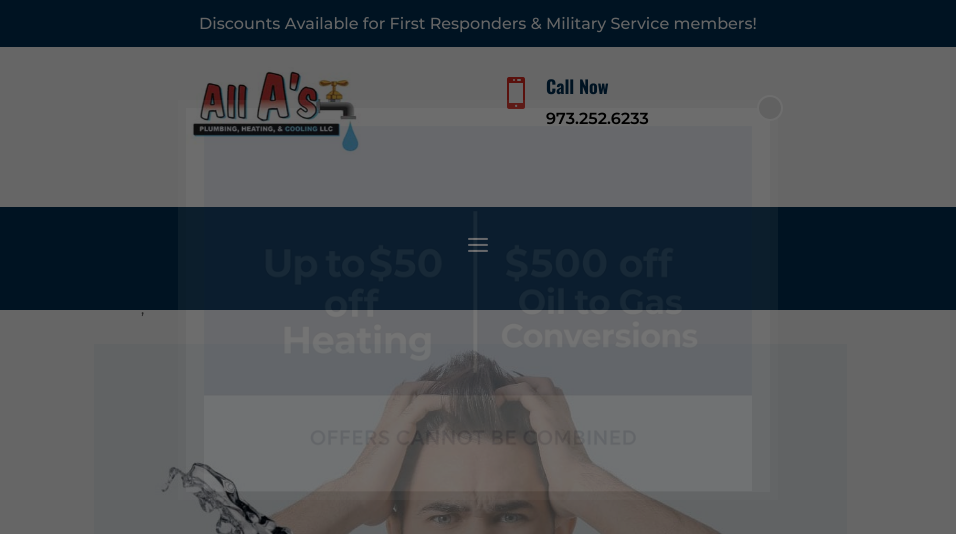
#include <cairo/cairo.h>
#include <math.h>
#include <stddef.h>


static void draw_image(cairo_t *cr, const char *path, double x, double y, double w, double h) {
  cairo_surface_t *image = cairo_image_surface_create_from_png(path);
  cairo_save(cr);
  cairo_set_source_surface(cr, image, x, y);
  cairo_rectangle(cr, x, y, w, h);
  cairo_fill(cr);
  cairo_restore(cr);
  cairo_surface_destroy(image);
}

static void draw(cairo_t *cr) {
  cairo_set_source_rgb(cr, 102 / 255.0, 102 / 255.0, 102 / 255.0);
  cairo_paint(cr);
  cairo_set_source_rgb(cr, 0, 19 / 255.0, 34 / 255.0);
  cairo_rectangle(cr, 0, 0, 956, 47);
  cairo_fill(cr);
  draw_image(cr, "images/1.png", 186, 67, 175, 88);
  draw_image(cr, "images/2.png", 507, 77, 18, 32);
  cairo_rectangle(cr, 0, 207, 956, 103);
  cairo_fill(cr);
  draw_image(cr, "images/3.png", 468, 237, 20, 15);
  draw_image(cr, "images/4.png", 94, 344, 753, 190);
  cairo_set_source_rgba(cr, 1, 1, 1, 0.05);
  cairo_rectangle(cr, 178, 100, 600, 400);
  cairo_fill(cr);
  cairo_new_path(cr);
  cairo_move_to(cr, 182, 104);
  cairo_line_to(cr, 774, 104);
  cairo_line_to(cr, 774, 496);
  cairo_line_to(cr, 182, 496);
  cairo_close_path(cr);
  cairo_set_source_rgba(cr, 0, 0, 0, 0.05);
  cairo_set_line_width(cr, 8);
  cairo_stroke(cr);
  cairo_set_source_rgb(cr, 97 / 255.0, 97 / 255.0, 97 / 255.0);
  cairo_arc(cr, 770, 108, 12, 0, 2 * M_PI);
  cairo_fill_preserve(cr);
  cairo_set_source_rgb(cr, 110 / 255.0, 110 / 255.0, 110 / 255.0);
  cairo_set_line_width(cr, 2);
  cairo_stroke(cr);
  draw_image(cr, "images/5.png", 204, 126, 548, 365);
  cairo_select_font_face(cr, "Montserrat Medium", CAIRO_FONT_SLANT_NORMAL, CAIRO_FONT_WEIGHT_NORMAL);
  cairo_set_font_size(cr, 16);
  cairo_set_source_rgb(cr, 102 / 255.0, 102 / 255.0, 102 / 255.0);
  cairo_move_to(cr, 199, 29);
  cairo_show_text(cr, "Discounts Available for First Responders & Military Service members!");
  cairo_select_font_face(cr, "Oswald", CAIRO_FONT_SLANT_NORMAL, CAIRO_FONT_WEIGHT_BOLD);
  cairo_set_font_size(cr, 18);
  cairo_set_source_rgb(cr, 0, 19 / 255.0, 34 / 255.0);
  cairo_move_to(cr, 546, 94);
  cairo_show_text(cr, "Call Now");
  cairo_select_font_face(cr, "Montserrat SemiBold", CAIRO_FONT_SLANT_NORMAL, CAIRO_FONT_WEIGHT_NORMAL);
  cairo_set_font_size(cr, 16);
  cairo_set_source_rgb(cr, 0, 0, 0);
  cairo_move_to(cr, 546, 124);
  cairo_show_text(cr, "973.252.6233");
  cairo_select_font_face(cr, "Montserrat Medium", CAIRO_FONT_SLANT_NORMAL, CAIRO_FONT_WEIGHT_NORMAL);
  cairo_set_font_size(cr, 14);
  cairo_set_source_rgb(cr, 36 / 255.0, 36 / 255.0, 36 / 255.0);
  cairo_move_to(cr, 141, 314);
  cairo_show_text(cr, ",");
}

int main(void) {
  cairo_surface_t *surface = cairo_image_surface_create(CAIRO_FORMAT_RGB24, 956, 534);
  cairo_t *cr = cairo_create(surface);
  cairo_font_options_t *options = cairo_font_options_create();
  cairo_font_options_set_hint_metrics(options, CAIRO_HINT_METRICS_OFF);
  cairo_font_options_set_hint_style(options, CAIRO_HINT_STYLE_NONE);
  cairo_set_font_options(cr, options);
  cairo_set_miter_limit(cr, 4);
  draw(cr);
  cairo_surface_write_to_png(surface, "out.png");
  cairo_font_options_destroy(options);
  cairo_destroy(cr);
  cairo_surface_destroy(surface);
  return 0;
}
